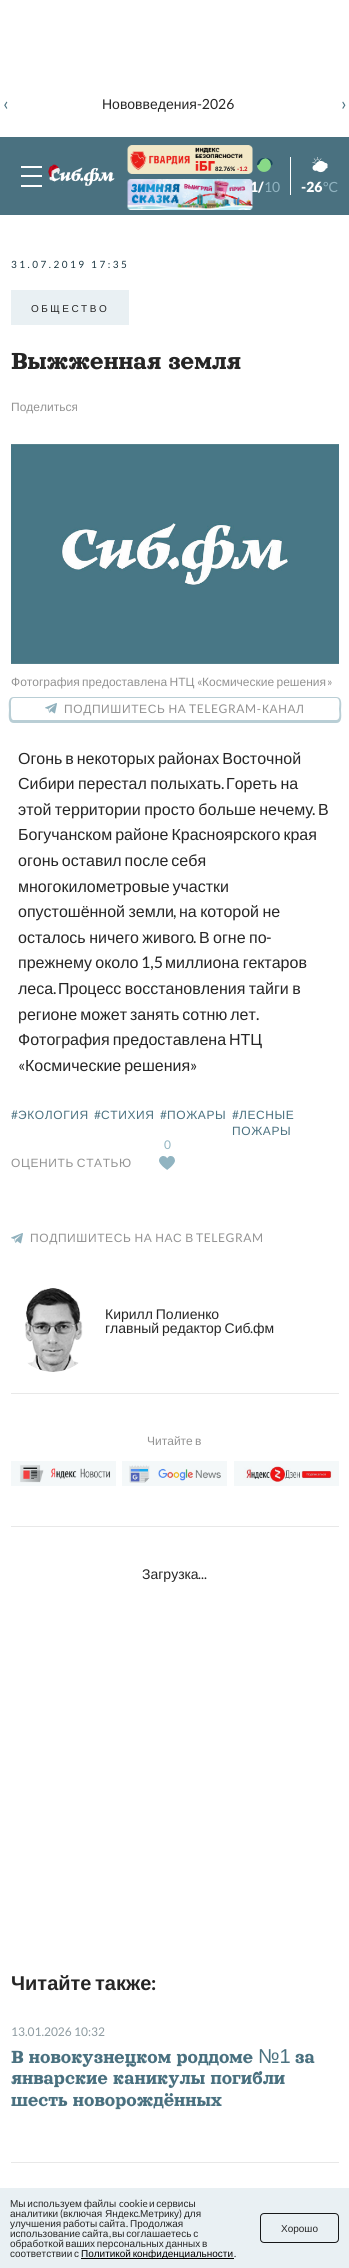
#include <cairo/cairo.h>
#include <math.h>
#include <stddef.h>


static void draw_spaced(cairo_t *cr, double x, double y, const char *s, double letter, double word) {
  cairo_move_to(cr, x, y);
  while (*s) {
    char ch[5] = {0};
    int n = 0;
    do ch[n++] = *s++; while ((*s & 0xC0) == 0x80);
    cairo_show_text(cr, ch);
    cairo_rel_move_to(cr, letter + word * (*ch == ' '), 0);
  }
}

static void rounded_rect(cairo_t *cr, double x, double y, double w, double h, double r) {
  cairo_new_sub_path(cr);
  cairo_arc(cr, x + w - r, y + h - r, r, 0, M_PI / 2);
  cairo_arc(cr, x + r, y + h - r, r, M_PI / 2, M_PI);
  cairo_arc(cr, x + r, y + r, r, M_PI, 1.5 * M_PI);
  cairo_arc(cr, x + w - r, y + r, r, 1.5 * M_PI, 2 * M_PI);
  cairo_close_path(cr);
}

static void draw_image(cairo_t *cr, const char *path, double x, double y, double w, double h) {
  cairo_surface_t *image = cairo_image_surface_create_from_png(path);
  cairo_save(cr);
  cairo_set_source_surface(cr, image, x, y);
  cairo_rectangle(cr, x, y, w, h);
  cairo_fill(cr);
  cairo_restore(cr);
  cairo_surface_destroy(image);
}

static void draw(cairo_t *cr) {
  cairo_set_source_rgb(cr, 1, 1, 1);
  cairo_paint(cr);
  cairo_set_source_rgb(cr, 74 / 255.0, 113 / 255.0, 128 / 255.0);
  cairo_rectangle(cr, 0, 137, 349, 78);
  cairo_fill(cr);
  cairo_set_source_rgb(cr, 1, 1, 1);
  cairo_rectangle(cr, 21, 166, 21, 2);
  cairo_fill(cr);
  cairo_rectangle(cr, 21, 175, 21, 2);
  cairo_fill(cr);
  cairo_rectangle(cr, 21, 185, 21, 2);
  cairo_fill(cr);
  draw_image(cr, "images/1.png", 48, 164, 67, 22);
  draw_image(cr, "images/2.png", 127, 145, 126, 29);
  cairo_rectangle(cr, 290, 157, 1, 38);
  cairo_fill(cr);
  draw_image(cr, "images/4.png", 257, 158, 16, 14);
  draw_image(cr, "images/5.png", 312, 157, 16, 16);
  cairo_set_source_rgb(cr, 233 / 255.0, 240 / 255.0, 243 / 255.0);
  cairo_rectangle(cr, 11, 290, 118, 35);
  cairo_fill(cr);
  draw_image(cr, "images/6.png", 11, 444, 328, 220);
  cairo_set_source_rgb(cr, 185 / 255.0, 206 / 255.0, 213 / 255.0);
  cairo_set_fill_rule(cr, CAIRO_FILL_RULE_EVEN_ODD);
  cairo_new_path(cr);
  cairo_move_to(cr, 14, 697);
  cairo_curve_to(cr, 7, 697, 9, 706, 9, 710);
  cairo_curve_to(cr, 9, 714, 7, 723, 14, 723);
  cairo_line_to(cr, 336, 723);
  cairo_curve_to(cr, 343, 723, 341, 714, 341, 710);
  cairo_curve_to(cr, 341, 706, 343, 697, 336, 697);
  cairo_close_path(cr);
  cairo_move_to(cr, 14, 698);
  cairo_curve_to(cr, 10, 698, 11, 704, 11, 706);
  cairo_line_to(cr, 11, 714);
  cairo_curve_to(cr, 11, 716, 11, 719, 13, 720);
  cairo_line_to(cr, 336, 720);
  cairo_curve_to(cr, 341, 720, 339, 712, 339, 709);
  cairo_curve_to(cr, 339, 706, 341, 698, 336, 698);
  cairo_close_path(cr);
  cairo_fill(cr);
  draw_image(cr, "images/7.png", 45, 703, 12, 11);
  draw_image(cr, "images/8.png", 159, 1156, 16, 14);
  draw_image(cr, "images/7.png", 11, 1233, 12, 11);
  draw_image(cr, "images/9.png", 25, 1288, 58, 84);
  cairo_set_source_rgb(cr, 232 / 255.0, 232 / 255.0, 232 / 255.0);
  cairo_rectangle(cr, 11, 1393, 328, 1);
  cairo_fill(cr);
  cairo_rectangle(cr, 11, 1526, 328, 1);
  cairo_fill(cr);
  draw_image(cr, "images/10.png", 11, 1461, 105, 25);
  draw_image(cr, "images/11.png", 122, 1461, 105, 25);
  draw_image(cr, "images/12.png", 234, 1461, 105, 25);
  cairo_rectangle(cr, 11, 2162, 328, 1);
  cairo_fill(cr);
  cairo_set_source_rgb(cr, 233 / 255.0, 240 / 255.0, 243 / 255.0);
  cairo_rectangle(cr, 0, 2188, 349, 80);
  cairo_fill(cr);
  cairo_set_source_rgb(cr, 0, 0, 0);
  cairo_rectangle(cr, 81, 2258, 153, 1);
  cairo_fill(cr);
  rounded_rect(cr, 260.5, 2213.5, 78, 29, 3.5);
  cairo_set_source_rgb(cr, 23 / 255.0, 24 / 255.0, 24 / 255.0);
  cairo_set_line_width(cr, 1);
  cairo_stroke(cr);
  cairo_select_font_face(cr, "Liberation Sans", CAIRO_FONT_SLANT_NORMAL, CAIRO_FONT_WEIGHT_NORMAL);
  cairo_set_font_size(cr, 14);
  cairo_set_source_rgb(cr, 38 / 255.0, 38 / 255.0, 38 / 255.0);
  cairo_move_to(cr, 102, 109);
  cairo_show_text(cr, "Нововведения");
  cairo_select_font_face(cr, "Lato", CAIRO_FONT_SLANT_NORMAL, CAIRO_FONT_WEIGHT_NORMAL);
  cairo_move_to(cr, 197, 109);
  cairo_show_text(cr, "-2026");
  cairo_set_font_size(cr, 18);
  cairo_set_source_rgb(cr, 74 / 255.0, 113 / 255.0, 128 / 255.0);
  cairo_move_to(cr, 3, 110);
  cairo_show_text(cr, "‹");
  cairo_move_to(cr, 341, 110);
  cairo_show_text(cr, "›");
  cairo_select_font_face(cr, "Lato Black", CAIRO_FONT_SLANT_NORMAL, CAIRO_FONT_WEIGHT_NORMAL);
  cairo_set_font_size(cr, 6);
  cairo_set_source_rgb(cr, 38 / 255.0, 38 / 255.0, 38 / 255.0);
  cairo_move_to(cr, 215, 171);
  cairo_show_text(cr, "82.76%");
  cairo_set_source_rgb(cr, 207 / 255.0, 36 / 255.0, 42 / 255.0);
  cairo_move_to(cr, 237, 171);
  cairo_show_text(cr, "-1.2");
  cairo_set_font_size(cr, 14);
  cairo_set_source_rgb(cr, 1, 1, 1);
  cairo_move_to(cr, 250, 192);
  cairo_show_text(cr, "1/");
  draw_image(cr, "images/3.png", 127, 179, 126, 31);
  cairo_select_font_face(cr, "Lato", CAIRO_FONT_SLANT_NORMAL, CAIRO_FONT_WEIGHT_NORMAL);
  cairo_set_source_rgb(cr, 145 / 255.0, 180 / 255.0, 193 / 255.0);
  cairo_move_to(cr, 264, 192);
  cairo_show_text(cr, "10");
  cairo_select_font_face(cr, "Lato Black", CAIRO_FONT_SLANT_NORMAL, CAIRO_FONT_WEIGHT_NORMAL);
  cairo_set_source_rgb(cr, 1, 1, 1);
  cairo_move_to(cr, 301, 192);
  cairo_show_text(cr, "-26");
  cairo_select_font_face(cr, "Lato", CAIRO_FONT_SLANT_NORMAL, CAIRO_FONT_WEIGHT_NORMAL);
  cairo_set_source_rgb(cr, 145 / 255.0, 180 / 255.0, 193 / 255.0);
  cairo_move_to(cr, 323, 192);
  cairo_show_text(cr, "°C");
  cairo_set_font_size(cr, 10);
  cairo_set_source_rgb(cr, 28 / 255.0, 55 / 255.0, 66 / 255.0);
  draw_spaced(cr, 11, 268, "31.07.2019 17:35", 2.5, 0);
  cairo_select_font_face(cr, "Liberation Sans", CAIRO_FONT_SLANT_NORMAL, CAIRO_FONT_WEIGHT_NORMAL);
  cairo_set_source_rgb(cr, 38 / 255.0, 38 / 255.0, 38 / 255.0);
  draw_spaced(cr, 31, 312, "ОБЩЕСТВО", 2.5, 0);
  cairo_select_font_face(cr, "Orelega One", CAIRO_FONT_SLANT_NORMAL, CAIRO_FONT_WEIGHT_NORMAL);
  cairo_set_font_size(cr, 26.5);
  cairo_move_to(cr, 11, 369);
  cairo_show_text(cr, "Выжженная земля");
  cairo_select_font_face(cr, "Liberation Sans", CAIRO_FONT_SLANT_NORMAL, CAIRO_FONT_WEIGHT_NORMAL);
  cairo_set_font_size(cr, 12);
  cairo_set_source_rgb(cr, 147 / 255.0, 147 / 255.0, 147 / 255.0);
  cairo_move_to(cr, 11, 411);
  cairo_show_text(cr, "Поделиться");
  draw_spaced(cr, 11, 686, "Фотография предоставлена НТЦ", 0, -1);
  cairo_select_font_face(cr, "Lato", CAIRO_FONT_SLANT_NORMAL, CAIRO_FONT_WEIGHT_NORMAL);
  cairo_move_to(cr, 197, 686);
  cairo_show_text(cr, "«");
  cairo_select_font_face(cr, "Liberation Sans", CAIRO_FONT_SLANT_NORMAL, CAIRO_FONT_WEIGHT_NORMAL);
  draw_spaced(cr, 202, 686, "Космические решения", 0, -1);
  cairo_select_font_face(cr, "Lato", CAIRO_FONT_SLANT_NORMAL, CAIRO_FONT_WEIGHT_NORMAL);
  cairo_move_to(cr, 327, 686);
  cairo_show_text(cr, "»");
  cairo_select_font_face(cr, "Liberation Sans", CAIRO_FONT_SLANT_NORMAL, CAIRO_FONT_WEIGHT_NORMAL);
  draw_spaced(cr, 64, 713, "ПОДПИШИТЕСЬ НА", 0.6, -1);
  cairo_select_font_face(cr, "Lato", CAIRO_FONT_SLANT_NORMAL, CAIRO_FONT_WEIGHT_NORMAL);
  draw_spaced(cr, 189, 713, "TELEGRAM-", 0.6, 0);
  cairo_select_font_face(cr, "Liberation Sans", CAIRO_FONT_SLANT_NORMAL, CAIRO_FONT_WEIGHT_NORMAL);
  draw_spaced(cr, 262, 713, "КАНАЛ", 0.6, 0);
  cairo_set_font_size(cr, 16);
  cairo_set_source_rgb(cr, 38 / 255.0, 38 / 255.0, 38 / 255.0);
  draw_spaced(cr, 18, 764, "Огонь в некоторых районах Восточной", 0, -1.5);
  draw_spaced(cr, 18, 789, "Сибири перестал полыхать", 0, -1);
  cairo_select_font_face(cr, "Lato", CAIRO_FONT_SLANT_NORMAL, CAIRO_FONT_WEIGHT_NORMAL);
  cairo_move_to(cr, 221, 789);
  cairo_show_text(cr, ".");
  cairo_select_font_face(cr, "Liberation Sans", CAIRO_FONT_SLANT_NORMAL, CAIRO_FONT_WEIGHT_NORMAL);
  draw_spaced(cr, 226, 789, "Гореть на", 0, -1);
  draw_spaced(cr, 18, 815, "этой территории просто больше нечему", 0, -1);
  cairo_select_font_face(cr, "Lato", CAIRO_FONT_SLANT_NORMAL, CAIRO_FONT_WEIGHT_NORMAL);
  cairo_move_to(cr, 312, 815);
  cairo_show_text(cr, ".");
  cairo_select_font_face(cr, "Liberation Sans", CAIRO_FONT_SLANT_NORMAL, CAIRO_FONT_WEIGHT_NORMAL);
  cairo_move_to(cr, 318, 815);
  cairo_show_text(cr, "В");
  draw_spaced(cr, 18, 840, "Богучанском районе Красноярского края", 0, -1.5);
  draw_spaced(cr, 18, 866, "огонь оставил после себя", 0, -1.5);
  draw_spaced(cr, 18, 892, "многокилометровые участки", 0, -1.5);
  draw_spaced(cr, 18, 917, "опустошённой земли", 0, -1);
  cairo_select_font_face(cr, "Lato", CAIRO_FONT_SLANT_NORMAL, CAIRO_FONT_WEIGHT_NORMAL);
  cairo_move_to(cr, 173, 917);
  cairo_show_text(cr, ",");
  cairo_select_font_face(cr, "Liberation Sans", CAIRO_FONT_SLANT_NORMAL, CAIRO_FONT_WEIGHT_NORMAL);
  draw_spaced(cr, 179, 917, "на которой не", 0, -1);
  draw_spaced(cr, 18, 943, "осталось ничего живого", 0, -1);
  draw_spaced(cr, 199, 943, "В огне по", 0, -1);
  cairo_select_font_face(cr, "Lato", CAIRO_FONT_SLANT_NORMAL, CAIRO_FONT_WEIGHT_NORMAL);
  cairo_move_to(cr, 266, 943);
  cairo_show_text(cr, "-");
  cairo_move_to(cr, 193, 943);
  cairo_show_text(cr, ".");
  cairo_select_font_face(cr, "Liberation Sans", CAIRO_FONT_SLANT_NORMAL, CAIRO_FONT_WEIGHT_NORMAL);
  draw_spaced(cr, 18, 968, "прежнему около", 0, -1);
  cairo_select_font_face(cr, "Lato", CAIRO_FONT_SLANT_NORMAL, CAIRO_FONT_WEIGHT_NORMAL);
  cairo_move_to(cr, 141, 968);
  cairo_show_text(cr, "1,5");
  cairo_select_font_face(cr, "Liberation Sans", CAIRO_FONT_SLANT_NORMAL, CAIRO_FONT_WEIGHT_NORMAL);
  draw_spaced(cr, 165, 968, "миллиона гектаров", 0, -1);
  cairo_move_to(cr, 18, 994);
  cairo_show_text(cr, "леса");
  cairo_select_font_face(cr, "Lato", CAIRO_FONT_SLANT_NORMAL, CAIRO_FONT_WEIGHT_NORMAL);
  cairo_move_to(cr, 53, 994);
  cairo_show_text(cr, ".");
  cairo_select_font_face(cr, "Liberation Sans", CAIRO_FONT_SLANT_NORMAL, CAIRO_FONT_WEIGHT_NORMAL);
  draw_spaced(cr, 58, 994, "Процесс восстановления тайги в", 0, -1);
  draw_spaced(cr, 18, 1020, "регионе может занять сотню лет", 0, -1.5);
  cairo_select_font_face(cr, "Lato", CAIRO_FONT_SLANT_NORMAL, CAIRO_FONT_WEIGHT_NORMAL);
  cairo_move_to(cr, 256, 1020);
  cairo_show_text(cr, ".");
  cairo_select_font_face(cr, "Liberation Sans", CAIRO_FONT_SLANT_NORMAL, CAIRO_FONT_WEIGHT_NORMAL);
  draw_spaced(cr, 18, 1045, "Фотография предоставлена НТЦ", 0, -1.5);
  cairo_select_font_face(cr, "Lato", CAIRO_FONT_SLANT_NORMAL, CAIRO_FONT_WEIGHT_NORMAL);
  cairo_move_to(cr, 18, 1071);
  cairo_show_text(cr, "«");
  cairo_select_font_face(cr, "Liberation Sans", CAIRO_FONT_SLANT_NORMAL, CAIRO_FONT_WEIGHT_NORMAL);
  draw_spaced(cr, 25, 1071, "Космические решения", 0, -1.5);
  cairo_select_font_face(cr, "Lato", CAIRO_FONT_SLANT_NORMAL, CAIRO_FONT_WEIGHT_NORMAL);
  cairo_move_to(cr, 190, 1071);
  cairo_show_text(cr, "»");
  cairo_set_font_size(cr, 12);
  cairo_set_source_rgb(cr, 74 / 255.0, 113 / 255.0, 128 / 255.0);
  draw_spaced(cr, 11, 1119, "#", 0.6, 0);
  cairo_select_font_face(cr, "Liberation Sans", CAIRO_FONT_SLANT_NORMAL, CAIRO_FONT_WEIGHT_NORMAL);
  draw_spaced(cr, 18, 1119, "ЭКОЛОГИЯ", 0.6, 0);
  cairo_select_font_face(cr, "Lato", CAIRO_FONT_SLANT_NORMAL, CAIRO_FONT_WEIGHT_NORMAL);
  draw_spaced(cr, 94, 1119, "#", 0.6, 0);
  cairo_select_font_face(cr, "Liberation Sans", CAIRO_FONT_SLANT_NORMAL, CAIRO_FONT_WEIGHT_NORMAL);
  draw_spaced(cr, 101, 1119, "СТИХИЯ", 0.6, 0);
  cairo_select_font_face(cr, "Lato", CAIRO_FONT_SLANT_NORMAL, CAIRO_FONT_WEIGHT_NORMAL);
  draw_spaced(cr, 160, 1119, "#", 0.6, 0);
  cairo_select_font_face(cr, "Liberation Sans", CAIRO_FONT_SLANT_NORMAL, CAIRO_FONT_WEIGHT_NORMAL);
  draw_spaced(cr, 167, 1119, "ПОЖАРЫ", 0.6, 0);
  cairo_select_font_face(cr, "Lato", CAIRO_FONT_SLANT_NORMAL, CAIRO_FONT_WEIGHT_NORMAL);
  draw_spaced(cr, 232, 1119, "#", 0.6, 0);
  cairo_select_font_face(cr, "Liberation Sans", CAIRO_FONT_SLANT_NORMAL, CAIRO_FONT_WEIGHT_NORMAL);
  draw_spaced(cr, 239, 1119, "ЛЕСНЫЕ", 0.6, 0);
  draw_spaced(cr, 232, 1135, "ПОЖАРЫ", 0.6, 0);
  cairo_select_font_face(cr, "Lato", CAIRO_FONT_SLANT_NORMAL, CAIRO_FONT_WEIGHT_NORMAL);
  cairo_set_source_rgb(cr, 145 / 255.0, 180 / 255.0, 193 / 255.0);
  cairo_move_to(cr, 164, 1149);
  cairo_show_text(cr, "0");
  cairo_select_font_face(cr, "Liberation Sans", CAIRO_FONT_SLANT_NORMAL, CAIRO_FONT_WEIGHT_NORMAL);
  cairo_set_source_rgb(cr, 147 / 255.0, 147 / 255.0, 147 / 255.0);
  draw_spaced(cr, 11, 1167, "ОЦЕНИТЬ СТАТЬЮ", 0.6, -1);
  draw_spaced(cr, 30, 1242, "ПОДПИШИТЕСЬ НА НАС В", 0.6, -1);
  cairo_select_font_face(cr, "Lato", CAIRO_FONT_SLANT_NORMAL, CAIRO_FONT_WEIGHT_NORMAL);
  draw_spaced(cr, 196, 1242, "TELEGRAM", 0.6, 0);
  cairo_select_font_face(cr, "Liberation Sans", CAIRO_FONT_SLANT_NORMAL, CAIRO_FONT_WEIGHT_NORMAL);
  cairo_set_font_size(cr, 14);
  cairo_set_source_rgb(cr, 38 / 255.0, 38 / 255.0, 38 / 255.0);
  draw_spaced(cr, 105, 1319, "Кирилл Полиенко", 0, -1);
  draw_spaced(cr, 105, 1333, "главный редактор Сиб", 0, -1);
  cairo_select_font_face(cr, "Lato", CAIRO_FONT_SLANT_NORMAL, CAIRO_FONT_WEIGHT_NORMAL);
  cairo_move_to(cr, 250, 1333);
  cairo_show_text(cr, ".");
  cairo_select_font_face(cr, "Liberation Sans", CAIRO_FONT_SLANT_NORMAL, CAIRO_FONT_WEIGHT_NORMAL);
  cairo_move_to(cr, 253, 1333);
  cairo_show_text(cr, "фм");
  cairo_set_font_size(cr, 12);
  cairo_set_source_rgb(cr, 147 / 255.0, 147 / 255.0, 147 / 255.0);
  draw_spaced(cr, 147, 1445, "Читайте в", 0, -1);
  cairo_set_font_size(cr, 14);
  cairo_set_source_rgb(cr, 38 / 255.0, 38 / 255.0, 38 / 255.0);
  cairo_move_to(cr, 142, 1579);
  cairo_show_text(cr, "Загрузка");
  cairo_select_font_face(cr, "Lato", CAIRO_FONT_SLANT_NORMAL, CAIRO_FONT_WEIGHT_NORMAL);
  cairo_move_to(cr, 198, 1579);
  cairo_show_text(cr, "...");
  cairo_select_font_face(cr, "Liberation Sans", CAIRO_FONT_SLANT_NORMAL, CAIRO_FONT_WEIGHT_BOLD);
  cairo_set_font_size(cr, 20);
  draw_spaced(cr, 11, 1990, "Читайте также", 0, -2);
  cairo_select_font_face(cr, "Lato", CAIRO_FONT_SLANT_NORMAL, CAIRO_FONT_WEIGHT_BOLD);
  cairo_move_to(cr, 151, 1990);
  cairo_show_text(cr, ":");
  cairo_select_font_face(cr, "Lato", CAIRO_FONT_SLANT_NORMAL, CAIRO_FONT_WEIGHT_NORMAL);
  cairo_set_font_size(cr, 12);
  cairo_set_source_rgb(cr, 142 / 255.0, 155 / 255.0, 161 / 255.0);
  cairo_move_to(cr, 11, 2036);
  cairo_show_text(cr, "13.01.2026 10:32");
  cairo_select_font_face(cr, "Orelega One", CAIRO_FONT_SLANT_NORMAL, CAIRO_FONT_WEIGHT_NORMAL);
  cairo_set_font_size(cr, 20.1);
  cairo_set_source_rgb(cr, 74 / 255.0, 113 / 255.0, 128 / 255.0);
  cairo_move_to(cr, 11, 2063);
  cairo_show_text(cr, "В новокузнецком роддоме");
  cairo_select_font_face(cr, "Liberation Sans", CAIRO_FONT_SLANT_NORMAL, CAIRO_FONT_WEIGHT_NORMAL);
  cairo_move_to(cr, 258, 2063);
  cairo_show_text(cr, "№1");
  cairo_select_font_face(cr, "Orelega One", CAIRO_FONT_SLANT_NORMAL, CAIRO_FONT_WEIGHT_NORMAL);
  cairo_move_to(cr, 295, 2063);
  cairo_show_text(cr, "за");
  cairo_move_to(cr, 11, 2084);
  cairo_show_text(cr, "январские каникулы погибли");
  cairo_move_to(cr, 11, 2106);
  cairo_show_text(cr, "шесть новорождённых");
  cairo_select_font_face(cr, "Liberation Sans", CAIRO_FONT_SLANT_NORMAL, CAIRO_FONT_WEIGHT_NORMAL);
  cairo_set_font_size(cr, 10);
  cairo_set_source_rgb(cr, 38 / 255.0, 38 / 255.0, 38 / 255.0);
  draw_spaced(cr, 10, 2207, "Мы используем файлы", 0, -1);
  cairo_select_font_face(cr, "Lato", CAIRO_FONT_SLANT_NORMAL, CAIRO_FONT_WEIGHT_NORMAL);
  cairo_move_to(cr, 119, 2207);
  cairo_show_text(cr, "cookie");
  cairo_select_font_face(cr, "Liberation Sans", CAIRO_FONT_SLANT_NORMAL, CAIRO_FONT_WEIGHT_NORMAL);
  draw_spaced(cr, 149, 2207, "и сервисы", 0, -1);
  cairo_move_to(cr, 10, 2217);
  cairo_show_text(cr, "аналитики");
  cairo_select_font_face(cr, "Lato", CAIRO_FONT_SLANT_NORMAL, CAIRO_FONT_WEIGHT_NORMAL);
  cairo_move_to(cr, 60, 2217);
  cairo_show_text(cr, "(");
  cairo_select_font_face(cr, "Liberation Sans", CAIRO_FONT_SLANT_NORMAL, CAIRO_FONT_WEIGHT_NORMAL);
  cairo_move_to(cr, 63, 2217);
  cairo_show_text(cr, "включая Яндекс");
  cairo_select_font_face(cr, "Lato", CAIRO_FONT_SLANT_NORMAL, CAIRO_FONT_WEIGHT_NORMAL);
  cairo_move_to(cr, 138, 2217);
  cairo_show_text(cr, ".");
  cairo_select_font_face(cr, "Liberation Sans", CAIRO_FONT_SLANT_NORMAL, CAIRO_FONT_WEIGHT_NORMAL);
  cairo_move_to(cr, 140, 2217);
  cairo_show_text(cr, "Метрику");
  cairo_select_font_face(cr, "Lato", CAIRO_FONT_SLANT_NORMAL, CAIRO_FONT_WEIGHT_NORMAL);
  cairo_move_to(cr, 179, 2217);
  cairo_show_text(cr, ")");
  cairo_select_font_face(cr, "Liberation Sans", CAIRO_FONT_SLANT_NORMAL, CAIRO_FONT_WEIGHT_NORMAL);
  cairo_move_to(cr, 184, 2217);
  cairo_show_text(cr, "для");
  draw_spaced(cr, 10, 2227, "улучшения работы сайта", 0, -1);
  cairo_move_to(cr, 130, 2227);
  cairo_show_text(cr, "Продолжая");
  cairo_select_font_face(cr, "Lato", CAIRO_FONT_SLANT_NORMAL, CAIRO_FONT_WEIGHT_NORMAL);
  cairo_move_to(cr, 126, 2227);
  cairo_show_text(cr, ".");
  cairo_select_font_face(cr, "Liberation Sans", CAIRO_FONT_SLANT_NORMAL, CAIRO_FONT_WEIGHT_NORMAL);
  draw_spaced(cr, 10, 2237, "использование сайта", 0, -1);
  cairo_select_font_face(cr, "Lato", CAIRO_FONT_SLANT_NORMAL, CAIRO_FONT_WEIGHT_NORMAL);
  cairo_move_to(cr, 109, 2237);
  cairo_show_text(cr, ",");
  cairo_select_font_face(cr, "Liberation Sans", CAIRO_FONT_SLANT_NORMAL, CAIRO_FONT_WEIGHT_NORMAL);
  draw_spaced(cr, 112, 2237, "вы соглашаетесь с", 0, -1);
  draw_spaced(cr, 10, 2247, "обработкой ваших персональных данных в", 0, -1);
  draw_spaced(cr, 10, 2257, "соответствии с", 0, -1);
  cairo_set_source_rgb(cr, 0, 0, 0);
  draw_spaced(cr, 81, 2257, "Политикой конфиденциальности", 0, -1);
  cairo_select_font_face(cr, "Lato", CAIRO_FONT_SLANT_NORMAL, CAIRO_FONT_WEIGHT_NORMAL);
  cairo_set_source_rgb(cr, 38 / 255.0, 38 / 255.0, 38 / 255.0);
  cairo_move_to(cr, 234, 2257);
  cairo_show_text(cr, ".");
  cairo_select_font_face(cr, "Liberation Sans", CAIRO_FONT_SLANT_NORMAL, CAIRO_FONT_WEIGHT_NORMAL);
  cairo_move_to(cr, 281, 2232);
  cairo_show_text(cr, "Хорошо");
}

int main(void) {
  cairo_surface_t *surface = cairo_image_surface_create(CAIRO_FORMAT_RGB24, 349, 2268);
  cairo_t *cr = cairo_create(surface);
  cairo_font_options_t *options = cairo_font_options_create();
  cairo_font_options_set_hint_metrics(options, CAIRO_HINT_METRICS_OFF);
  cairo_font_options_set_hint_style(options, CAIRO_HINT_STYLE_NONE);
  cairo_set_font_options(cr, options);
  cairo_set_miter_limit(cr, 4);
  draw(cr);
  cairo_surface_write_to_png(surface, "out.png");
  cairo_font_options_destroy(options);
  cairo_destroy(cr);
  cairo_surface_destroy(surface);
  return 0;
}
